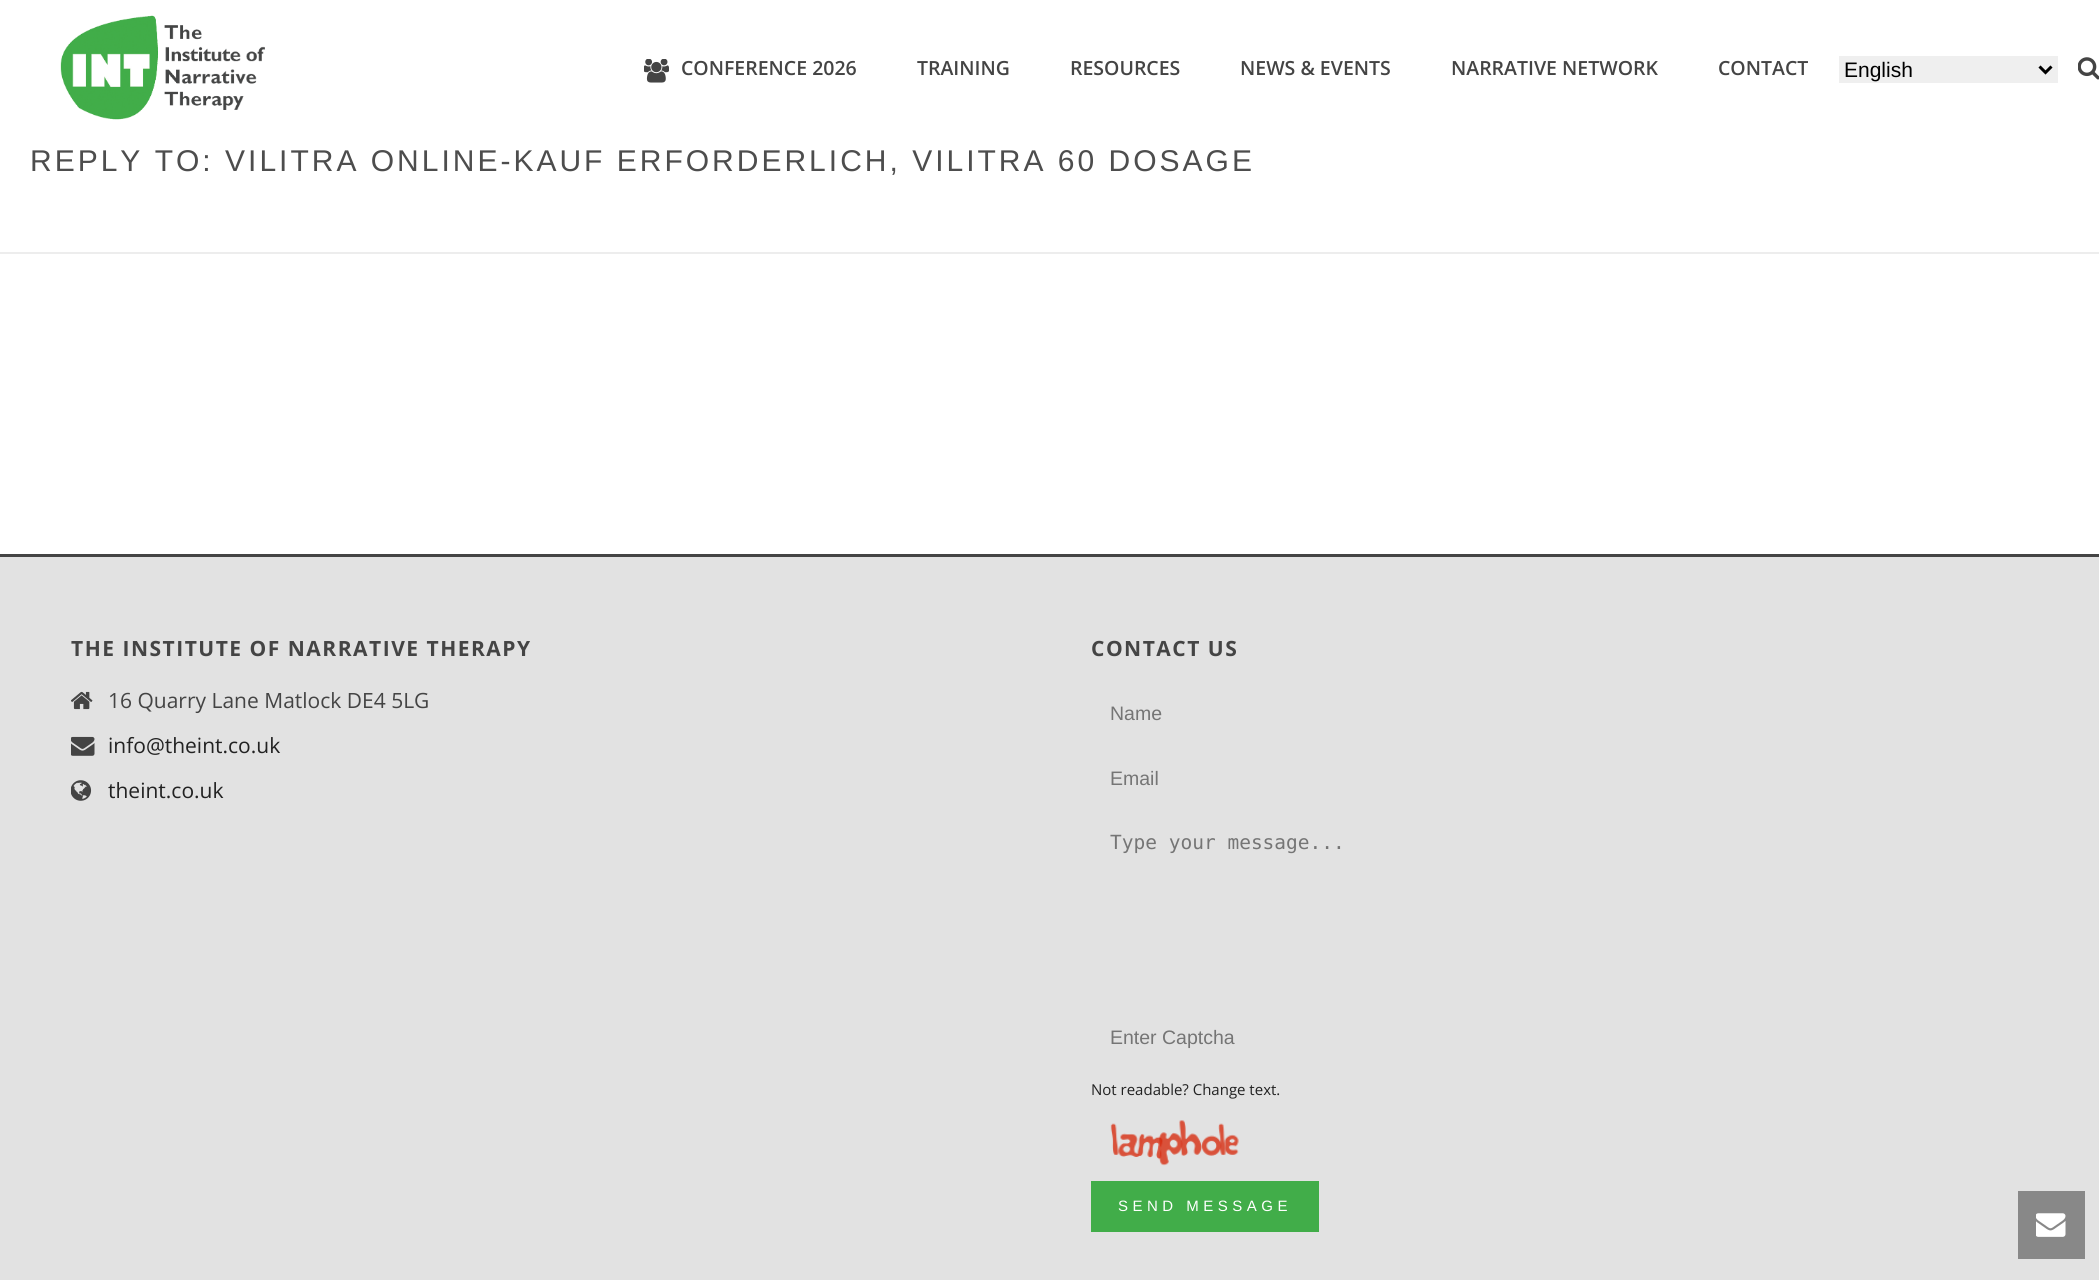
#include <cairo/cairo.h>
#include <math.h>
#include <stddef.h>


static void draw_spaced(cairo_t *cr, double x, double y, const char *s, double letter, double word) {
  cairo_move_to(cr, x, y);
  while (*s) {
    char ch[5] = {0};
    int n = 0;
    do ch[n++] = *s++; while ((*s & 0xC0) == 0x80);
    cairo_show_text(cr, ch);
    cairo_rel_move_to(cr, letter + word * (*ch == ' '), 0);
  }
}

static void draw_image(cairo_t *cr, const char *path, double x, double y, double w, double h) {
  cairo_surface_t *image = cairo_image_surface_create_from_png(path);
  cairo_save(cr);
  cairo_set_source_surface(cr, image, x, y);
  cairo_rectangle(cr, x, y, w, h);
  cairo_fill(cr);
  cairo_restore(cr);
  cairo_surface_destroy(image);
}

static void draw(cairo_t *cr) {
  cairo_set_source_rgb(cr, 1, 1, 1);
  cairo_paint(cr);
  cairo_set_source_rgb(cr, 237 / 255.0, 237 / 255.0, 237 / 255.0);
  cairo_rectangle(cr, 0, 252, 2099, 2);
  cairo_fill(cr);
  draw_image(cr, "images/1.png", 60, 15, 205, 105);
  draw_image(cr, "images/2.png", 644, 59, 25, 24);
  cairo_set_source_rgb(cr, 239 / 255.0, 239 / 255.0, 239 / 255.0);
  cairo_rectangle(cr, 1839, 56, 219, 27);
  cairo_fill(cr);
  cairo_new_path(cr);
  cairo_move_to(cr, 2039.5, 66.5);
  cairo_line_to(cr, 2045.5, 72.5);
  cairo_line_to(cr, 2051.5, 66.5);
  cairo_set_source_rgb(cr, 0, 0, 0);
  cairo_set_line_width(cr, 3);
  cairo_stroke(cr);
  draw_image(cr, "images/3.png", 2078, 57, 21, 23);
  cairo_set_source_rgb(cr, 226 / 255.0, 226 / 255.0, 226 / 255.0);
  cairo_rectangle(cr, 0, 557, 2099, 723);
  cairo_fill(cr);
  cairo_set_source_rgb(cr, 68 / 255.0, 68 / 255.0, 68 / 255.0);
  cairo_rectangle(cr, 0, 554, 2099, 3);
  cairo_fill(cr);
  draw_image(cr, "images/4.png", 71, 691, 22, 19);
  draw_image(cr, "images/5.png", 71, 736, 24, 20);
  draw_image(cr, "images/6.png", 71, 780, 21, 21);
  draw_image(cr, "images/7.png", 1110, 1120, 129, 46);
  cairo_set_source_rgb(cr, 65 / 255.0, 173 / 255.0, 73 / 255.0);
  cairo_rectangle(cr, 1091, 1181, 228, 51);
  cairo_fill(cr);
  cairo_set_source_rgb(cr, 136 / 255.0, 136 / 255.0, 136 / 255.0);
  cairo_rectangle(cr, 2018, 1191, 67, 68);
  cairo_fill(cr);
  draw_image(cr, "images/8.png", 2036, 1213, 30, 24);
  cairo_select_font_face(cr, "Open Sans SemiBold", CAIRO_FONT_SLANT_NORMAL, CAIRO_FONT_WEIGHT_NORMAL);
  cairo_set_font_size(cr, 19.5);
  cairo_set_source_rgb(cr, 68 / 255.0, 68 / 255.0, 68 / 255.0);
  cairo_move_to(cr, 681, 75);
  cairo_show_text(cr, "CONFERENCE 2026");
  cairo_move_to(cr, 917, 75);
  cairo_show_text(cr, "TRAINING");
  cairo_move_to(cr, 1070, 75);
  cairo_show_text(cr, "RESOURCES");
  cairo_move_to(cr, 1240, 75);
  cairo_show_text(cr, "NEWS & EVENTS");
  cairo_move_to(cr, 1451, 75);
  cairo_show_text(cr, "NARRATIVE NETWORK");
  cairo_move_to(cr, 1718, 75);
  cairo_show_text(cr, "CONTACT");
  cairo_select_font_face(cr, "Liberation Sans", CAIRO_FONT_SLANT_NORMAL, CAIRO_FONT_WEIGHT_NORMAL);
  cairo_set_font_size(cr, 21);
  cairo_set_source_rgb(cr, 0, 0, 0);
  cairo_move_to(cr, 1844, 77);
  cairo_show_text(cr, "English");
  cairo_select_font_face(cr, "Arimo", CAIRO_FONT_SLANT_NORMAL, CAIRO_FONT_WEIGHT_NORMAL);
  cairo_set_font_size(cr, 30);
  cairo_set_source_rgb(cr, 77 / 255.0, 77 / 255.0, 77 / 255.0);
  draw_spaced(cr, 30, 171, "REPLY TO: VILITRA ONLINE-KAUF ERFORDERLICH, VILITRA 60 DOSAGE", 3, 0);
  cairo_select_font_face(cr, "Open Sans", CAIRO_FONT_SLANT_NORMAL, CAIRO_FONT_WEIGHT_BOLD);
  cairo_set_font_size(cr, 21);
  cairo_set_source_rgb(cr, 68 / 255.0, 68 / 255.0, 68 / 255.0);
  draw_spaced(cr, 71, 656, "THE INSTITUTE OF NARRATIVE THERAPY", 1.5, 0);
  cairo_select_font_face(cr, "Open Sans", CAIRO_FONT_SLANT_NORMAL, CAIRO_FONT_WEIGHT_NORMAL);
  cairo_move_to(cr, 108, 708);
  cairo_show_text(cr, "16 Quarry Lane Matlock DE4 5LG");
  cairo_set_source_rgb(cr, 34 / 255.0, 34 / 255.0, 34 / 255.0);
  cairo_move_to(cr, 108, 753);
  cairo_show_text(cr, "info@theint.co.uk");
  cairo_move_to(cr, 108, 798);
  cairo_show_text(cr, "theint.co.uk");
  cairo_select_font_face(cr, "Open Sans", CAIRO_FONT_SLANT_NORMAL, CAIRO_FONT_WEIGHT_BOLD);
  cairo_set_source_rgb(cr, 68 / 255.0, 68 / 255.0, 68 / 255.0);
  draw_spaced(cr, 1091, 656, "CONTACT US", 1.5, 0);
  cairo_select_font_face(cr, "Liberation Sans", CAIRO_FONT_SLANT_NORMAL, CAIRO_FONT_WEIGHT_NORMAL);
  cairo_set_font_size(cr, 19.5);
  cairo_set_source_rgb(cr, 117 / 255.0, 117 / 255.0, 117 / 255.0);
  cairo_move_to(cr, 1110, 720);
  cairo_show_text(cr, "Name");
  cairo_move_to(cr, 1110, 785);
  cairo_show_text(cr, "Email");
  cairo_select_font_face(cr, "DejaVu Sans Mono", CAIRO_FONT_SLANT_NORMAL, CAIRO_FONT_WEIGHT_NORMAL);
  cairo_move_to(cr, 1110, 849);
  cairo_show_text(cr, "Type your message...");
  cairo_select_font_face(cr, "Liberation Sans", CAIRO_FONT_SLANT_NORMAL, CAIRO_FONT_WEIGHT_NORMAL);
  cairo_move_to(cr, 1110, 1044);
  cairo_show_text(cr, "Enter Captcha");
  cairo_select_font_face(cr, "Open Sans", CAIRO_FONT_SLANT_NORMAL, CAIRO_FONT_WEIGHT_NORMAL);
  cairo_set_font_size(cr, 15);
  cairo_set_source_rgb(cr, 34 / 255.0, 34 / 255.0, 34 / 255.0);
  cairo_move_to(cr, 1091, 1095);
  cairo_show_text(cr, "Not readable? Change text.");
  cairo_select_font_face(cr, "Liberation Sans", CAIRO_FONT_SLANT_NORMAL, CAIRO_FONT_WEIGHT_NORMAL);
  cairo_set_source_rgb(cr, 1, 1, 1);
  draw_spaced(cr, 1118, 1211, "SEND MESSAGE", 4.5, 0);
}

int main(void) {
  cairo_surface_t *surface = cairo_image_surface_create(CAIRO_FORMAT_RGB24, 2099, 1280);
  cairo_t *cr = cairo_create(surface);
  cairo_font_options_t *options = cairo_font_options_create();
  cairo_font_options_set_hint_metrics(options, CAIRO_HINT_METRICS_OFF);
  cairo_font_options_set_hint_style(options, CAIRO_HINT_STYLE_NONE);
  cairo_set_font_options(cr, options);
  cairo_set_miter_limit(cr, 4);
  draw(cr);
  cairo_surface_write_to_png(surface, "out.png");
  cairo_font_options_destroy(options);
  cairo_destroy(cr);
  cairo_surface_destroy(surface);
  return 0;
}
